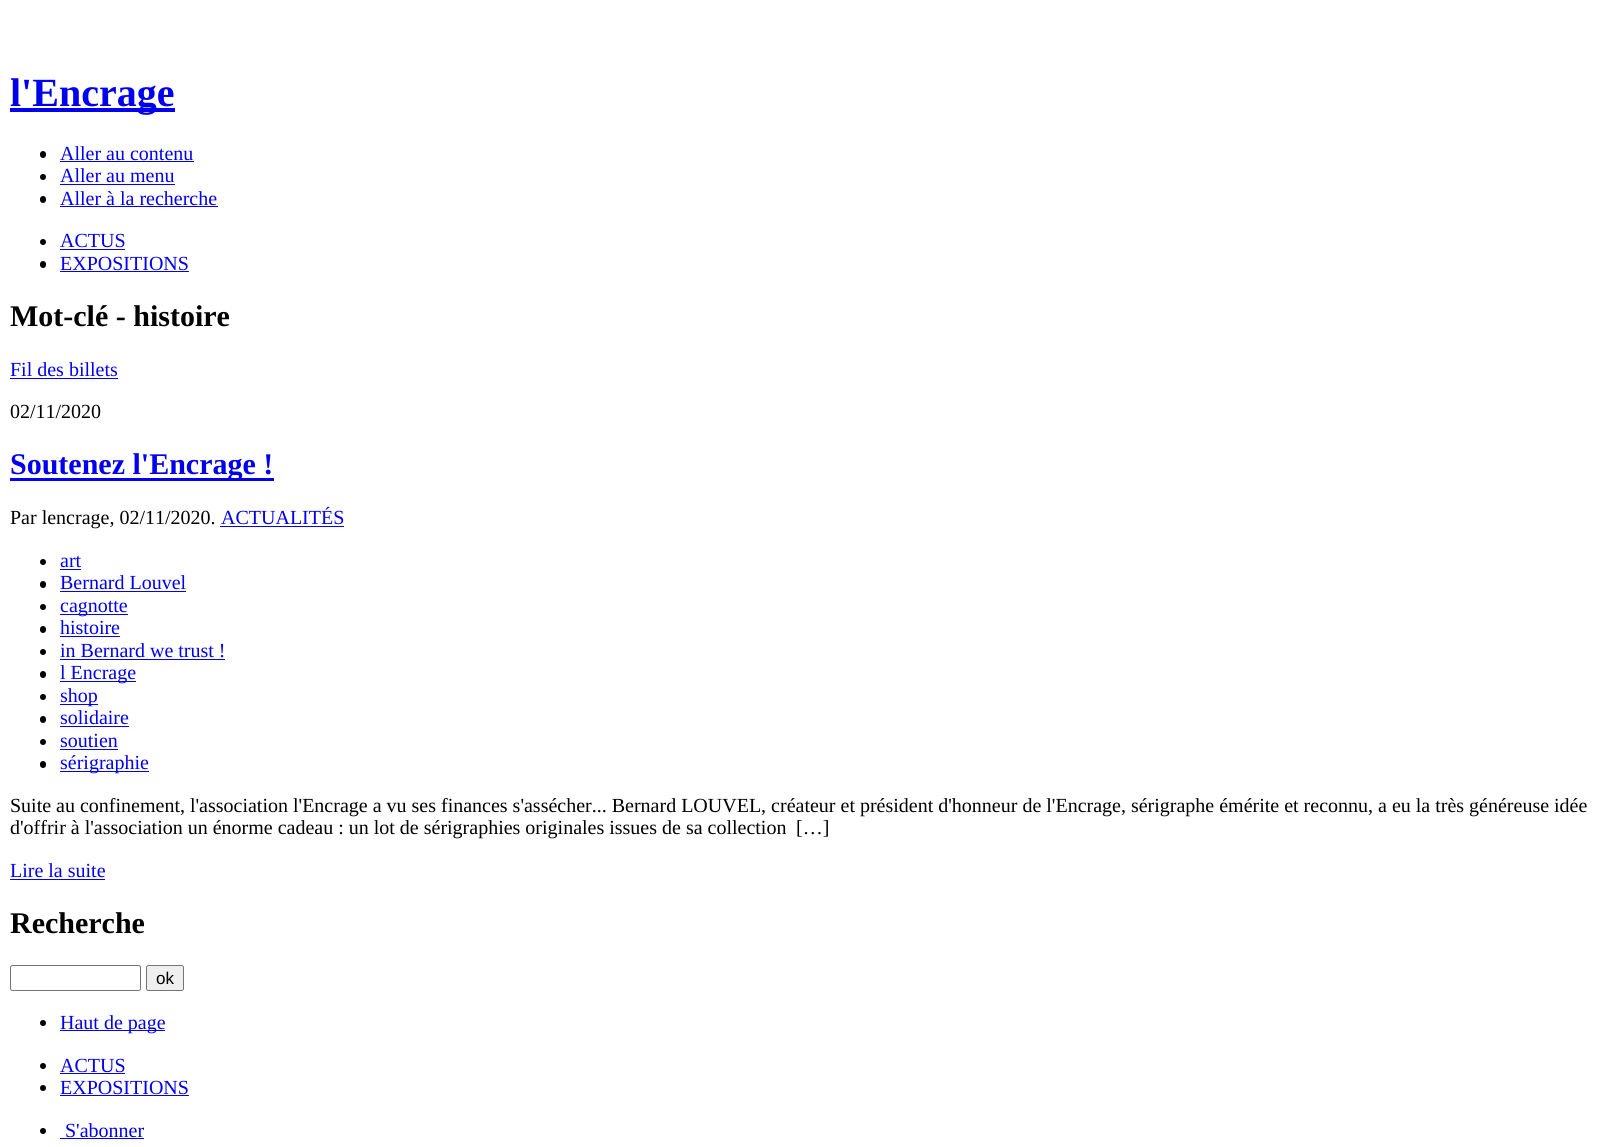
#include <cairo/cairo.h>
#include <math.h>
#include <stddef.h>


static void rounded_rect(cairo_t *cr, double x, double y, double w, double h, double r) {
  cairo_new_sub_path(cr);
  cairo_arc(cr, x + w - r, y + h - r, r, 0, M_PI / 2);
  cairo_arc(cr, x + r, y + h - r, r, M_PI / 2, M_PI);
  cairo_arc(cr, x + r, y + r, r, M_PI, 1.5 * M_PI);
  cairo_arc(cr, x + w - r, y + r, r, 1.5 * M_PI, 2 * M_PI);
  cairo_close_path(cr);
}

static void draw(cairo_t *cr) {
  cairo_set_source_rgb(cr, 1, 1, 1);
  cairo_paint(cr);
  cairo_set_source_rgb(cr, 0, 0, 238 / 255.0);
  cairo_rectangle(cr, 10, 108, 165, 4);
  cairo_fill(cr);
  cairo_set_source_rgb(cr, 0, 0, 0);
  rounded_rect(cr, 40, 151, 6, 7, 3);
  cairo_fill(cr);
  cairo_set_source_rgb(cr, 0, 0, 238 / 255.0);
  cairo_rectangle(cr, 60, 161, 134, 1);
  cairo_fill(cr);
  cairo_set_source_rgb(cr, 0, 0, 0);
  cairo_arc(cr, 43, 177, 3, 0, 2 * M_PI);
  cairo_fill(cr);
  cairo_set_source_rgb(cr, 0, 0, 238 / 255.0);
  cairo_rectangle(cr, 60, 184, 115, 1);
  cairo_fill(cr);
  cairo_set_source_rgb(cr, 0, 0, 0);
  rounded_rect(cr, 40, 196, 6, 7, 3);
  cairo_fill(cr);
  cairo_set_source_rgb(cr, 0, 0, 238 / 255.0);
  cairo_rectangle(cr, 60, 206, 158, 1);
  cairo_fill(cr);
  cairo_set_source_rgb(cr, 0, 0, 0);
  cairo_arc(cr, 43, 242, 3, 0, 2 * M_PI);
  cairo_fill(cr);
  cairo_set_source_rgb(cr, 0, 0, 238 / 255.0);
  cairo_rectangle(cr, 60, 249, 65, 1);
  cairo_fill(cr);
  cairo_set_source_rgb(cr, 0, 0, 0);
  rounded_rect(cr, 40, 261, 6, 7, 3);
  cairo_fill(cr);
  cairo_set_source_rgb(cr, 0, 0, 238 / 255.0);
  cairo_rectangle(cr, 60, 271, 129, 1);
  cairo_fill(cr);
  cairo_rectangle(cr, 10, 378, 108, 1);
  cairo_fill(cr);
  cairo_rectangle(cr, 10, 478, 264, 3);
  cairo_fill(cr);
  cairo_rectangle(cr, 220, 526, 124, 1);
  cairo_fill(cr);
  cairo_set_source_rgb(cr, 0, 0, 0);
  cairo_arc(cr, 43, 562, 3, 0, 2 * M_PI);
  cairo_fill(cr);
  cairo_set_source_rgb(cr, 0, 0, 238 / 255.0);
  cairo_rectangle(cr, 60, 569, 21, 1);
  cairo_fill(cr);
  cairo_set_source_rgb(cr, 0, 0, 0);
  rounded_rect(cr, 40, 581, 6, 7, 3);
  cairo_fill(cr);
  cairo_set_source_rgb(cr, 0, 0, 238 / 255.0);
  cairo_rectangle(cr, 60, 591, 126, 1);
  cairo_fill(cr);
  cairo_set_source_rgb(cr, 0, 0, 0);
  cairo_arc(cr, 43, 607, 3, 0, 2 * M_PI);
  cairo_fill(cr);
  cairo_set_source_rgb(cr, 0, 0, 238 / 255.0);
  cairo_rectangle(cr, 60, 614, 68, 1);
  cairo_fill(cr);
  cairo_set_source_rgb(cr, 0, 0, 0);
  rounded_rect(cr, 40, 626, 6, 7, 3);
  cairo_fill(cr);
  cairo_set_source_rgb(cr, 0, 0, 238 / 255.0);
  cairo_rectangle(cr, 60, 636, 60, 1);
  cairo_fill(cr);
  cairo_set_source_rgb(cr, 0, 0, 0);
  cairo_arc(cr, 43, 652, 3, 0, 2 * M_PI);
  cairo_fill(cr);
  cairo_set_source_rgb(cr, 0, 0, 238 / 255.0);
  cairo_rectangle(cr, 60, 659, 165, 1);
  cairo_fill(cr);
  cairo_set_source_rgb(cr, 0, 0, 0);
  rounded_rect(cr, 40, 671, 6, 7, 3);
  cairo_fill(cr);
  cairo_set_source_rgb(cr, 0, 0, 238 / 255.0);
  cairo_rectangle(cr, 60, 681, 76, 1);
  cairo_fill(cr);
  cairo_set_source_rgb(cr, 0, 0, 0);
  cairo_arc(cr, 43, 697, 3, 0, 2 * M_PI);
  cairo_fill(cr);
  cairo_set_source_rgb(cr, 0, 0, 238 / 255.0);
  cairo_rectangle(cr, 60, 704, 38, 1);
  cairo_fill(cr);
  cairo_set_source_rgb(cr, 0, 0, 0);
  rounded_rect(cr, 40, 716, 6, 7, 3);
  cairo_fill(cr);
  cairo_set_source_rgb(cr, 0, 0, 238 / 255.0);
  cairo_rectangle(cr, 60, 726, 69, 1);
  cairo_fill(cr);
  cairo_set_source_rgb(cr, 0, 0, 0);
  cairo_arc(cr, 43, 742, 3, 0, 2 * M_PI);
  cairo_fill(cr);
  cairo_set_source_rgb(cr, 0, 0, 238 / 255.0);
  cairo_rectangle(cr, 60, 749, 58, 1);
  cairo_fill(cr);
  cairo_set_source_rgb(cr, 0, 0, 0);
  rounded_rect(cr, 40, 761, 6, 7, 3);
  cairo_fill(cr);
  cairo_set_source_rgb(cr, 0, 0, 238 / 255.0);
  cairo_rectangle(cr, 60, 771, 89, 1);
  cairo_fill(cr);
  cairo_rectangle(cr, 10, 879, 95, 1);
  cairo_fill(cr);
  rounded_rect(cr, 10.5, 965.5, 130, 25, 2);
  cairo_set_source_rgb(cr, 118 / 255.0, 118 / 255.0, 118 / 255.0);
  cairo_set_line_width(cr, 1);
  cairo_stroke(cr);
  cairo_set_source_rgb(cr, 239 / 255.0, 239 / 255.0, 239 / 255.0);
  rounded_rect(cr, 146.5, 965.5, 37, 25, 2);
  cairo_fill_preserve(cr);
  cairo_set_source_rgb(cr, 118 / 255.0, 118 / 255.0, 118 / 255.0);
  cairo_stroke(cr);
  cairo_set_source_rgb(cr, 0, 0, 0);
  cairo_arc(cr, 43, 1023, 3, 0, 2 * M_PI);
  cairo_fill(cr);
  cairo_set_source_rgb(cr, 0, 0, 238 / 255.0);
  cairo_rectangle(cr, 60, 1030, 105, 1);
  cairo_fill(cr);
  cairo_set_source_rgb(cr, 0, 0, 0);
  cairo_arc(cr, 43, 1066, 3, 0, 2 * M_PI);
  cairo_fill(cr);
  cairo_set_source_rgb(cr, 0, 0, 238 / 255.0);
  cairo_rectangle(cr, 60, 1073, 65, 1);
  cairo_fill(cr);
  cairo_set_source_rgb(cr, 0, 0, 0);
  cairo_arc(cr, 43, 1088, 3, 0, 2 * M_PI);
  cairo_fill(cr);
  cairo_set_source_rgb(cr, 0, 0, 238 / 255.0);
  cairo_rectangle(cr, 60, 1095, 129, 1);
  cairo_fill(cr);
  cairo_set_source_rgb(cr, 0, 0, 0);
  cairo_arc(cr, 43, 1131, 3, 0, 2 * M_PI);
  cairo_fill(cr);
  cairo_set_source_rgb(cr, 0, 0, 238 / 255.0);
  cairo_rectangle(cr, 60, 1138, 84, 1);
  cairo_fill(cr);
  cairo_select_font_face(cr, "Liberation Serif", CAIRO_FONT_SLANT_NORMAL, CAIRO_FONT_WEIGHT_BOLD);
  cairo_set_font_size(cr, 40);
  cairo_move_to(cr, 10, 106);
  cairo_show_text(cr, "l'Encrage");
  cairo_select_font_face(cr, "Liberation Serif", CAIRO_FONT_SLANT_NORMAL, CAIRO_FONT_WEIGHT_NORMAL);
  cairo_set_font_size(cr, 20);
  cairo_move_to(cr, 60, 160);
  cairo_show_text(cr, "Aller au contenu");
  cairo_move_to(cr, 60, 182);
  cairo_show_text(cr, "Aller au menu");
  cairo_move_to(cr, 60, 205);
  cairo_show_text(cr, "Aller à la recherche");
  cairo_move_to(cr, 60, 247);
  cairo_show_text(cr, "ACTUS");
  cairo_move_to(cr, 60, 270);
  cairo_show_text(cr, "EXPOSITIONS");
  cairo_select_font_face(cr, "Liberation Serif", CAIRO_FONT_SLANT_NORMAL, CAIRO_FONT_WEIGHT_BOLD);
  cairo_set_font_size(cr, 30);
  cairo_set_source_rgb(cr, 0, 0, 0);
  cairo_move_to(cr, 10, 326);
  cairo_show_text(cr, "Mot-clé - histoire");
  cairo_select_font_face(cr, "Liberation Serif", CAIRO_FONT_SLANT_NORMAL, CAIRO_FONT_WEIGHT_NORMAL);
  cairo_set_font_size(cr, 20);
  cairo_set_source_rgb(cr, 0, 0, 238 / 255.0);
  cairo_move_to(cr, 10, 376);
  cairo_show_text(cr, "Fil des billets");
  cairo_set_source_rgb(cr, 0, 0, 0);
  cairo_move_to(cr, 10, 418);
  cairo_show_text(cr, "02/11/2020");
  cairo_select_font_face(cr, "Liberation Serif", CAIRO_FONT_SLANT_NORMAL, CAIRO_FONT_WEIGHT_BOLD);
  cairo_set_font_size(cr, 30);
  cairo_set_source_rgb(cr, 0, 0, 238 / 255.0);
  cairo_move_to(cr, 10, 474);
  cairo_show_text(cr, "Soutenez l'Encrage !");
  cairo_select_font_face(cr, "Liberation Serif", CAIRO_FONT_SLANT_NORMAL, CAIRO_FONT_WEIGHT_NORMAL);
  cairo_set_font_size(cr, 20);
  cairo_set_source_rgb(cr, 0, 0, 0);
  cairo_move_to(cr, 10, 524);
  cairo_show_text(cr, "Par lencrage, 02/11/2020.");
  cairo_set_source_rgb(cr, 0, 0, 238 / 255.0);
  cairo_move_to(cr, 221, 524);
  cairo_show_text(cr, "ACTUALITÉS");
  cairo_move_to(cr, 60, 567);
  cairo_show_text(cr, "art");
  cairo_move_to(cr, 60, 589);
  cairo_show_text(cr, "Bernard Louvel");
  cairo_move_to(cr, 60, 612);
  cairo_show_text(cr, "cagnotte");
  cairo_move_to(cr, 60, 634);
  cairo_show_text(cr, "histoire");
  cairo_move_to(cr, 60, 657);
  cairo_show_text(cr, "in Bernard we trust !");
  cairo_move_to(cr, 60, 679);
  cairo_show_text(cr, "l Encrage");
  cairo_move_to(cr, 60, 702);
  cairo_show_text(cr, "shop");
  cairo_move_to(cr, 60, 724);
  cairo_show_text(cr, "solidaire");
  cairo_move_to(cr, 60, 747);
  cairo_show_text(cr, "soutien");
  cairo_move_to(cr, 60, 769);
  cairo_show_text(cr, "sérigraphie");
  cairo_set_source_rgb(cr, 0, 0, 0);
  cairo_move_to(cr, 10, 812);
  cairo_show_text(cr, "Suite au confinement, l'association l'Encrage a vu ses finances s'assécher... Bernard LOUVEL, créateur et président d'honneur de l'Encrage, sérigraphe émérite et reconnu, a eu la très généreuse idée");
  cairo_move_to(cr, 10, 834);
  cairo_show_text(cr, "d'offrir à l'association un énorme cadeau : un lot de sérigraphies originales issues de sa collection");
  cairo_move_to(cr, 796, 834);
  cairo_show_text(cr, "[…]");
  cairo_set_source_rgb(cr, 0, 0, 238 / 255.0);
  cairo_move_to(cr, 10, 877);
  cairo_show_text(cr, "Lire la suite");
  cairo_select_font_face(cr, "Liberation Serif", CAIRO_FONT_SLANT_NORMAL, CAIRO_FONT_WEIGHT_BOLD);
  cairo_set_font_size(cr, 30);
  cairo_set_source_rgb(cr, 0, 0, 0);
  cairo_move_to(cr, 10, 933);
  cairo_show_text(cr, "Recherche");
  cairo_select_font_face(cr, "Liberation Sans", CAIRO_FONT_SLANT_NORMAL, CAIRO_FONT_WEIGHT_NORMAL);
  cairo_set_font_size(cr, 17);
  cairo_move_to(cr, 156, 984);
  cairo_show_text(cr, "ok");
  cairo_select_font_face(cr, "Liberation Serif", CAIRO_FONT_SLANT_NORMAL, CAIRO_FONT_WEIGHT_NORMAL);
  cairo_set_font_size(cr, 20);
  cairo_set_source_rgb(cr, 0, 0, 238 / 255.0);
  cairo_move_to(cr, 60, 1029);
  cairo_show_text(cr, "Haut de page");
  cairo_move_to(cr, 60, 1072);
  cairo_show_text(cr, "ACTUS");
  cairo_move_to(cr, 60, 1094);
  cairo_show_text(cr, "EXPOSITIONS");
  cairo_move_to(cr, 65, 1137);
  cairo_show_text(cr, "S'abonner");
}

int main(void) {
  cairo_surface_t *surface = cairo_image_surface_create(CAIRO_FORMAT_RGB24, 1616, 1147);
  cairo_t *cr = cairo_create(surface);
  cairo_font_options_t *options = cairo_font_options_create();
  cairo_font_options_set_hint_metrics(options, CAIRO_HINT_METRICS_OFF);
  cairo_font_options_set_hint_style(options, CAIRO_HINT_STYLE_NONE);
  cairo_set_font_options(cr, options);
  cairo_set_miter_limit(cr, 4);
  draw(cr);
  cairo_surface_write_to_png(surface, "out.png");
  cairo_font_options_destroy(options);
  cairo_destroy(cr);
  cairo_surface_destroy(surface);
  return 0;
}
